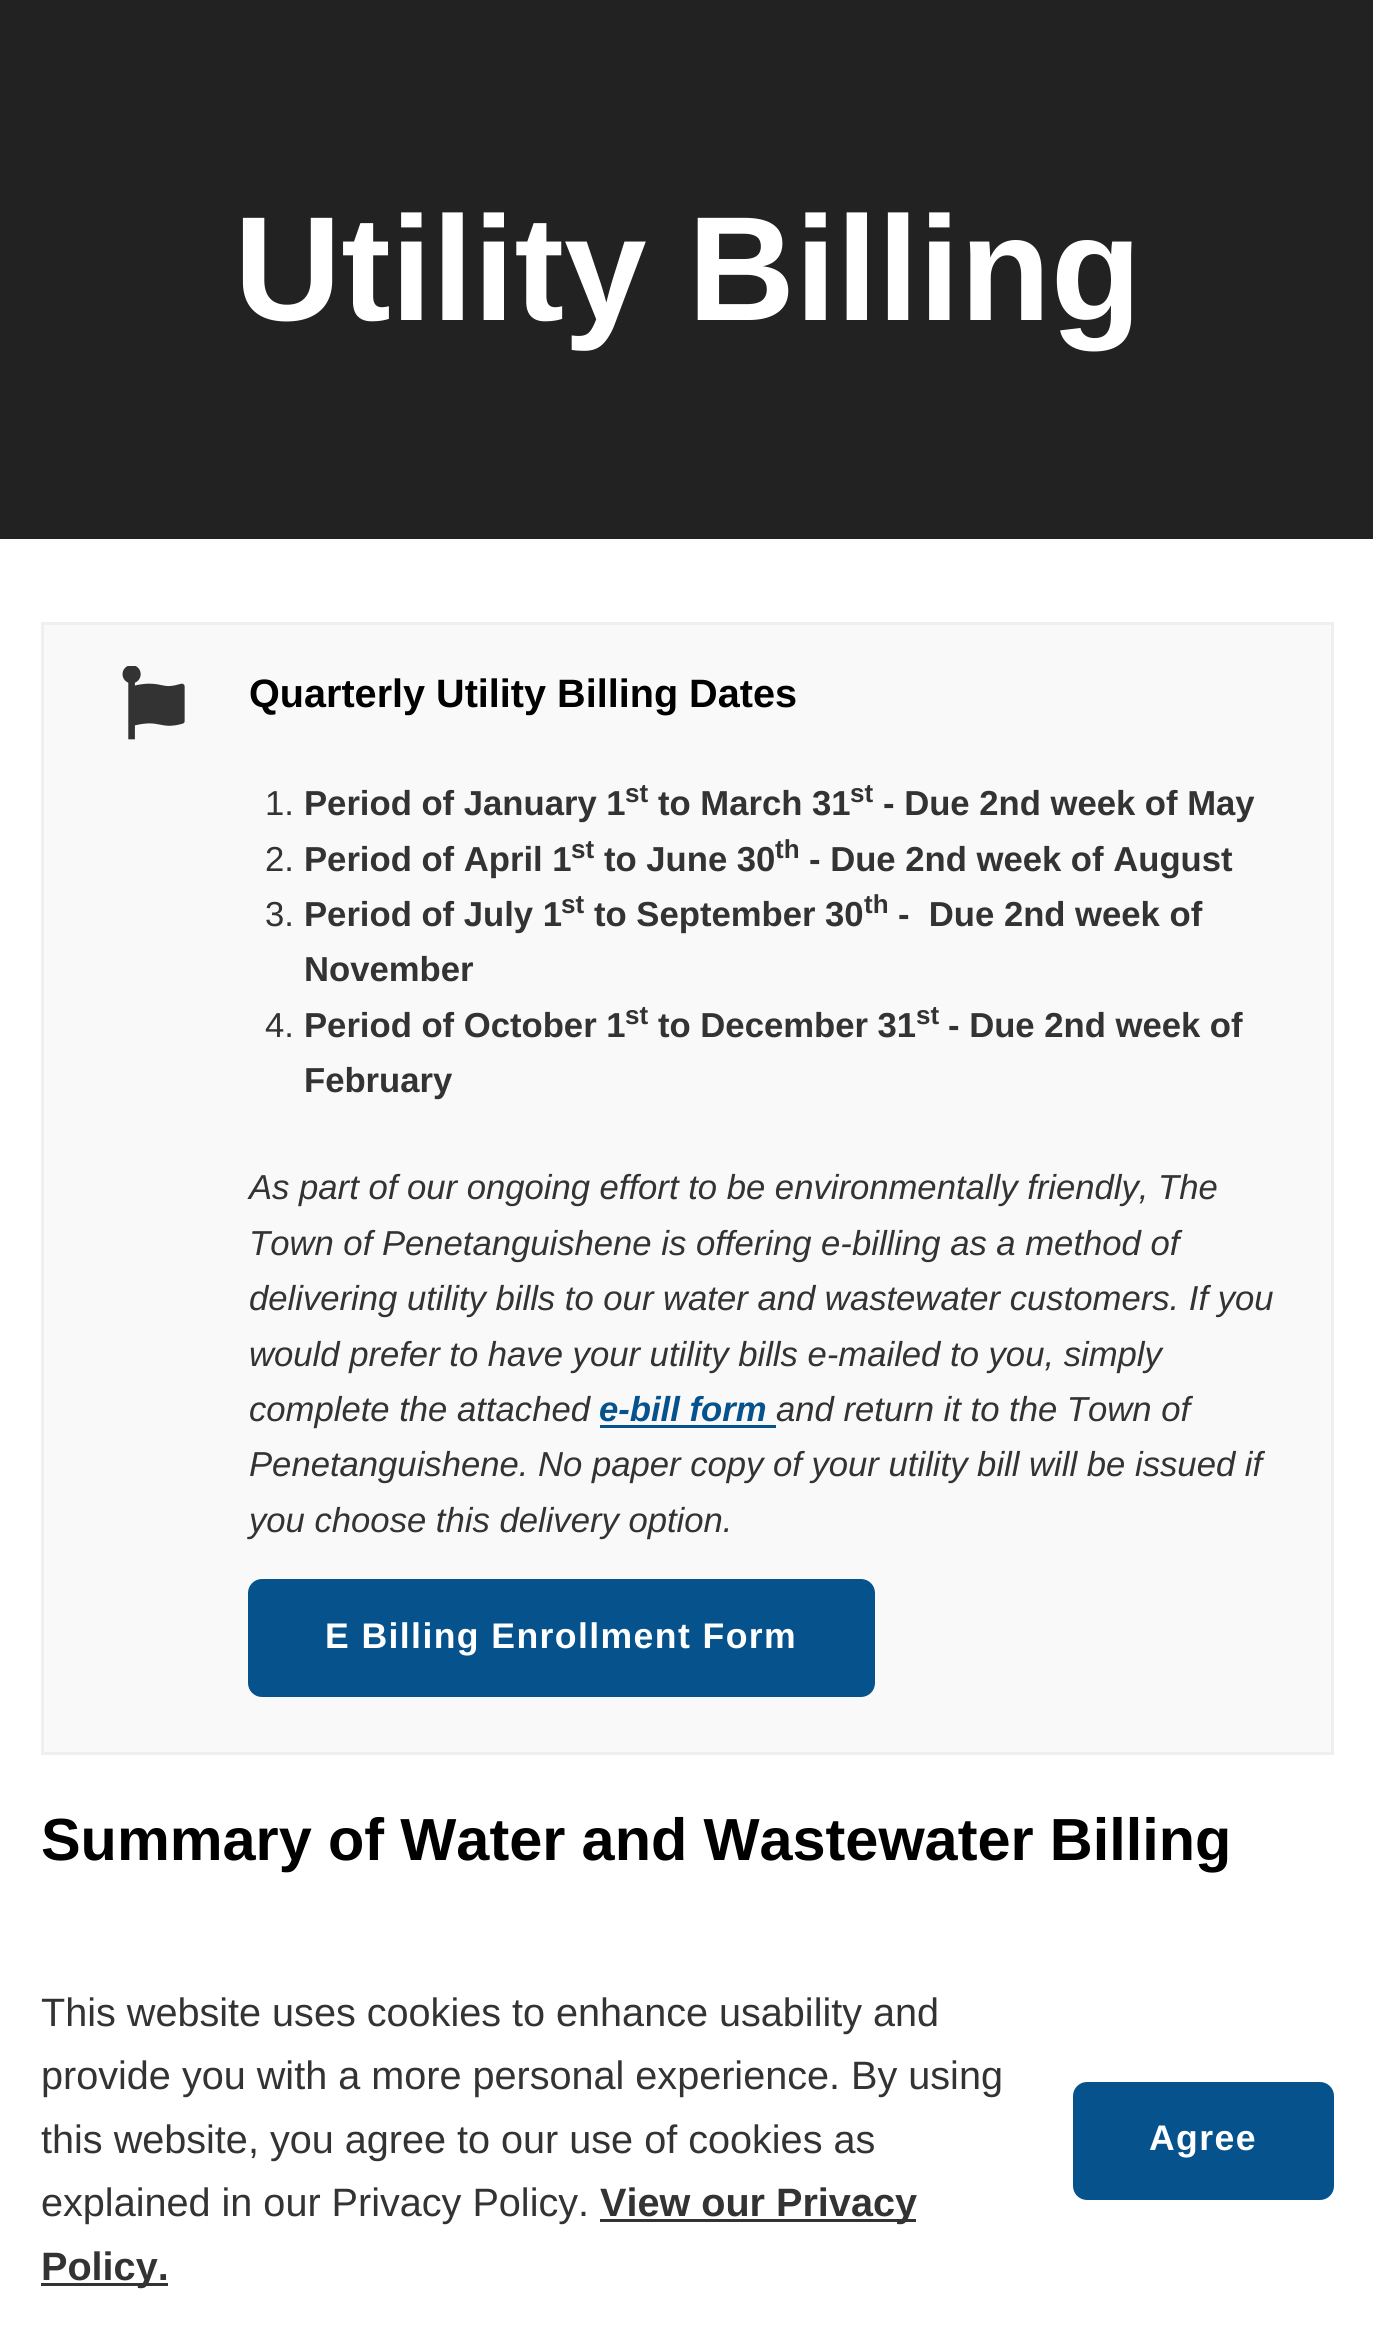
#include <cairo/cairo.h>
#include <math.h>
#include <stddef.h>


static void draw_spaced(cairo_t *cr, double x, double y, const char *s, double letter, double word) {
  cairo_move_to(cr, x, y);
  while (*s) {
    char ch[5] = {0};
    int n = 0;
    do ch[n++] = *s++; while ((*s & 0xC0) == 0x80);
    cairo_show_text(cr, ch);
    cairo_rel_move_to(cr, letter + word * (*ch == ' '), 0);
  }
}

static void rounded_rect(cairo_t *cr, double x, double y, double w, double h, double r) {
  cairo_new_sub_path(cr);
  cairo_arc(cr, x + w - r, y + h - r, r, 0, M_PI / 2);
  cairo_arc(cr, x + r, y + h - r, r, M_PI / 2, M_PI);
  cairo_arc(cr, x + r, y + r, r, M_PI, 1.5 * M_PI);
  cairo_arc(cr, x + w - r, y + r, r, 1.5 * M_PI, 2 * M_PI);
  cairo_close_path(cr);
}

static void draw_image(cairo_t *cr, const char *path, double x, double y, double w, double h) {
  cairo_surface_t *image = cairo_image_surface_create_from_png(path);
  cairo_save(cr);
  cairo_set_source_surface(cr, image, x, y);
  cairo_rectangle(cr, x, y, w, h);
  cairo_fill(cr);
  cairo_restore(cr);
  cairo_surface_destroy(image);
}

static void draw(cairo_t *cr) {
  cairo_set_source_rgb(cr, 1, 1, 1);
  cairo_paint(cr);
  cairo_set_source_rgb(cr, 34 / 255.0, 34 / 255.0, 34 / 255.0);
  cairo_rectangle(cr, 0, 0, 1373, 539);
  cairo_fill(cr);
  cairo_set_source_rgb(cr, 249 / 255.0, 249 / 255.0, 249 / 255.0);
  cairo_rectangle(cr, 42.5, 623.5, 1290, 1130);
  cairo_fill_preserve(cr);
  cairo_set_source_rgb(cr, 239 / 255.0, 239 / 255.0, 239 / 255.0);
  cairo_set_line_width(cr, 3);
  cairo_stroke(cr);
  draw_image(cr, "images/1.png", 122, 666, 63, 74);
  cairo_set_source_rgb(cr, 5 / 255.0, 82 / 255.0, 140 / 255.0);
  cairo_rectangle(cr, 600, 1425, 176, 3);
  cairo_fill(cr);
  rounded_rect(cr, 251, 1582, 621, 112, 11);
  cairo_fill_preserve(cr);
  cairo_set_line_width(cr, 6);
  cairo_stroke(cr);
  cairo_set_source_rgb(cr, 51 / 255.0, 51 / 255.0, 51 / 255.0);
  cairo_rectangle(cr, 600, 2219, 316, 3);
  cairo_fill(cr);
  cairo_rectangle(cr, 41, 2283, 127, 3);
  cairo_fill(cr);
  cairo_set_source_rgb(cr, 5 / 255.0, 82 / 255.0, 140 / 255.0);
  rounded_rect(cr, 1076, 2085, 255, 112, 11);
  cairo_fill_preserve(cr);
  cairo_stroke(cr);
  cairo_select_font_face(cr, "Arimo", CAIRO_FONT_SLANT_NORMAL, CAIRO_FONT_WEIGHT_BOLD);
  cairo_set_font_size(cr, 148.5);
  cairo_set_source_rgb(cr, 1, 1, 1);
  cairo_move_to(cr, 234, 320);
  cairo_show_text(cr, "Utility Billing");
  cairo_set_font_size(cr, 39.6);
  cairo_set_source_rgb(cr, 0, 0, 0);
  cairo_move_to(cr, 249, 707);
  cairo_show_text(cr, "Quarterly Utility Billing Dates");
  cairo_select_font_face(cr, "Arimo", CAIRO_FONT_SLANT_NORMAL, CAIRO_FONT_WEIGHT_NORMAL);
  cairo_set_font_size(cr, 34.65);
  cairo_set_source_rgb(cr, 51 / 255.0, 51 / 255.0, 51 / 255.0);
  cairo_move_to(cr, 265, 815);
  cairo_show_text(cr, "1.");
  cairo_select_font_face(cr, "Arimo", CAIRO_FONT_SLANT_NORMAL, CAIRO_FONT_WEIGHT_BOLD);
  cairo_move_to(cr, 304, 815);
  cairo_show_text(cr, "Period of January 1");
  cairo_set_font_size(cr, 26);
  cairo_move_to(cr, 625, 802);
  cairo_show_text(cr, "st");
  cairo_set_font_size(cr, 34.65);
  cairo_move_to(cr, 658, 815);
  cairo_show_text(cr, "to March 31");
  cairo_set_font_size(cr, 26);
  cairo_move_to(cr, 850, 802);
  cairo_show_text(cr, "st");
  cairo_set_font_size(cr, 34.65);
  cairo_move_to(cr, 883, 815);
  cairo_show_text(cr, "- Due 2nd week of May");
  cairo_select_font_face(cr, "Arimo", CAIRO_FONT_SLANT_NORMAL, CAIRO_FONT_WEIGHT_NORMAL);
  cairo_move_to(cr, 265, 871);
  cairo_show_text(cr, "2.");
  cairo_select_font_face(cr, "Arimo", CAIRO_FONT_SLANT_NORMAL, CAIRO_FONT_WEIGHT_BOLD);
  cairo_move_to(cr, 304, 871);
  cairo_show_text(cr, "Period of April 1");
  cairo_set_font_size(cr, 26);
  cairo_move_to(cr, 571, 858);
  cairo_show_text(cr, "st");
  cairo_set_font_size(cr, 34.65);
  cairo_move_to(cr, 604, 871);
  cairo_show_text(cr, "to June 30");
  cairo_set_font_size(cr, 26);
  cairo_move_to(cr, 775, 858);
  cairo_show_text(cr, "th");
  cairo_set_font_size(cr, 34.65);
  cairo_move_to(cr, 809, 871);
  cairo_show_text(cr, "- Due 2nd week of August");
  cairo_select_font_face(cr, "Arimo", CAIRO_FONT_SLANT_NORMAL, CAIRO_FONT_WEIGHT_NORMAL);
  cairo_move_to(cr, 265, 926);
  cairo_show_text(cr, "3.");
  cairo_select_font_face(cr, "Arimo", CAIRO_FONT_SLANT_NORMAL, CAIRO_FONT_WEIGHT_BOLD);
  cairo_move_to(cr, 304, 926);
  cairo_show_text(cr, "Period of July 1");
  cairo_set_font_size(cr, 26);
  cairo_move_to(cr, 561, 913);
  cairo_show_text(cr, "st");
  cairo_set_font_size(cr, 34.65);
  cairo_move_to(cr, 594, 926);
  cairo_show_text(cr, "to September 30");
  cairo_set_font_size(cr, 26);
  cairo_move_to(cr, 864, 913);
  cairo_show_text(cr, "th");
  cairo_set_font_size(cr, 34.65);
  cairo_move_to(cr, 898, 926);
  cairo_show_text(cr, "-  Due 2nd week of");
  cairo_move_to(cr, 304, 981);
  cairo_show_text(cr, "November");
  cairo_select_font_face(cr, "Arimo", CAIRO_FONT_SLANT_NORMAL, CAIRO_FONT_WEIGHT_NORMAL);
  cairo_move_to(cr, 265, 1037);
  cairo_show_text(cr, "4.");
  cairo_select_font_face(cr, "Arimo", CAIRO_FONT_SLANT_NORMAL, CAIRO_FONT_WEIGHT_BOLD);
  cairo_move_to(cr, 304, 1037);
  cairo_show_text(cr, "Period of October 1");
  cairo_set_font_size(cr, 26);
  cairo_move_to(cr, 625, 1024);
  cairo_show_text(cr, "st");
  cairo_set_font_size(cr, 34.65);
  cairo_move_to(cr, 658, 1037);
  cairo_show_text(cr, "to December 31");
  cairo_set_font_size(cr, 26);
  cairo_move_to(cr, 916, 1024);
  cairo_show_text(cr, "st");
  cairo_set_font_size(cr, 34.65);
  cairo_move_to(cr, 948, 1037);
  cairo_show_text(cr, "- Due 2nd week of");
  cairo_move_to(cr, 304, 1092);
  cairo_show_text(cr, "February");
  cairo_select_font_face(cr, "Arimo", CAIRO_FONT_SLANT_ITALIC, CAIRO_FONT_WEIGHT_NORMAL);
  cairo_move_to(cr, 249, 1199);
  cairo_show_text(cr, "As part of our ongoing effort to be environmentally friendly, The");
  cairo_move_to(cr, 249, 1255);
  cairo_show_text(cr, "Town of Penetanguishene is offering e-billing as a method of");
  cairo_move_to(cr, 249, 1310);
  cairo_show_text(cr, "delivering utility bills to our water and wastewater customers. If you");
  cairo_move_to(cr, 249, 1366);
  cairo_show_text(cr, "would prefer to have your utility bills e-mailed to you, simply");
  cairo_move_to(cr, 249, 1421);
  cairo_show_text(cr, "complete the attached");
  cairo_select_font_face(cr, "Arimo", CAIRO_FONT_SLANT_ITALIC, CAIRO_FONT_WEIGHT_BOLD);
  cairo_set_source_rgb(cr, 5 / 255.0, 82 / 255.0, 140 / 255.0);
  cairo_move_to(cr, 599, 1421);
  cairo_show_text(cr, "e-bill form");
  cairo_select_font_face(cr, "Arimo", CAIRO_FONT_SLANT_ITALIC, CAIRO_FONT_WEIGHT_NORMAL);
  cairo_set_source_rgb(cr, 51 / 255.0, 51 / 255.0, 51 / 255.0);
  cairo_move_to(cr, 776, 1421);
  cairo_show_text(cr, "and return it to the Town of");
  cairo_move_to(cr, 249, 1476);
  cairo_show_text(cr, "Penetanguishene. No paper copy of your utility bill will be issued if");
  cairo_move_to(cr, 249, 1532);
  cairo_show_text(cr, "you choose this delivery option.");
  cairo_select_font_face(cr, "Arimo", CAIRO_FONT_SLANT_NORMAL, CAIRO_FONT_WEIGHT_BOLD);
  cairo_set_font_size(cr, 35.6);
  cairo_set_source_rgb(cr, 1, 1, 1);
  draw_spaced(cr, 325, 1648, "E Billing Enrollment Form", 1.4, 0);
  cairo_set_font_size(cr, 59.4);
  cairo_set_source_rgb(cr, 0, 0, 0);
  draw_spaced(cr, 41, 1860, "Summary of Water and Wastewater Billing", 0, -0.25);
  cairo_select_font_face(cr, "Arimo", CAIRO_FONT_SLANT_NORMAL, CAIRO_FONT_WEIGHT_NORMAL);
  cairo_set_font_size(cr, 39.6);
  cairo_set_source_rgb(cr, 51 / 255.0, 51 / 255.0, 51 / 255.0);
  cairo_move_to(cr, 41, 2026);
  cairo_show_text(cr, "This website uses cookies to enhance usability and");
  cairo_move_to(cr, 41, 2089);
  cairo_show_text(cr, "provide you with a more personal experience. By using");
  cairo_move_to(cr, 41, 2153);
  cairo_show_text(cr, "this website, you agree to our use of cookies as");
  cairo_move_to(cr, 41, 2216);
  cairo_show_text(cr, "explained in our Privacy Policy.");
  cairo_select_font_face(cr, "Arimo", CAIRO_FONT_SLANT_NORMAL, CAIRO_FONT_WEIGHT_BOLD);
  cairo_move_to(cr, 600, 2216);
  cairo_show_text(cr, "View our Privacy");
  cairo_move_to(cr, 41, 2280);
  cairo_show_text(cr, "Policy.");
  cairo_set_font_size(cr, 35.6);
  cairo_set_source_rgb(cr, 1, 1, 1);
  draw_spaced(cr, 1149, 2150, "Agree", 1.4, 0);
}

int main(void) {
  cairo_surface_t *surface = cairo_image_surface_create(CAIRO_FORMAT_RGB24, 1373, 2340);
  cairo_t *cr = cairo_create(surface);
  cairo_font_options_t *options = cairo_font_options_create();
  cairo_font_options_set_hint_metrics(options, CAIRO_HINT_METRICS_OFF);
  cairo_font_options_set_hint_style(options, CAIRO_HINT_STYLE_NONE);
  cairo_set_font_options(cr, options);
  cairo_set_miter_limit(cr, 4);
  draw(cr);
  cairo_surface_write_to_png(surface, "out.png");
  cairo_font_options_destroy(options);
  cairo_destroy(cr);
  cairo_surface_destroy(surface);
  return 0;
}
